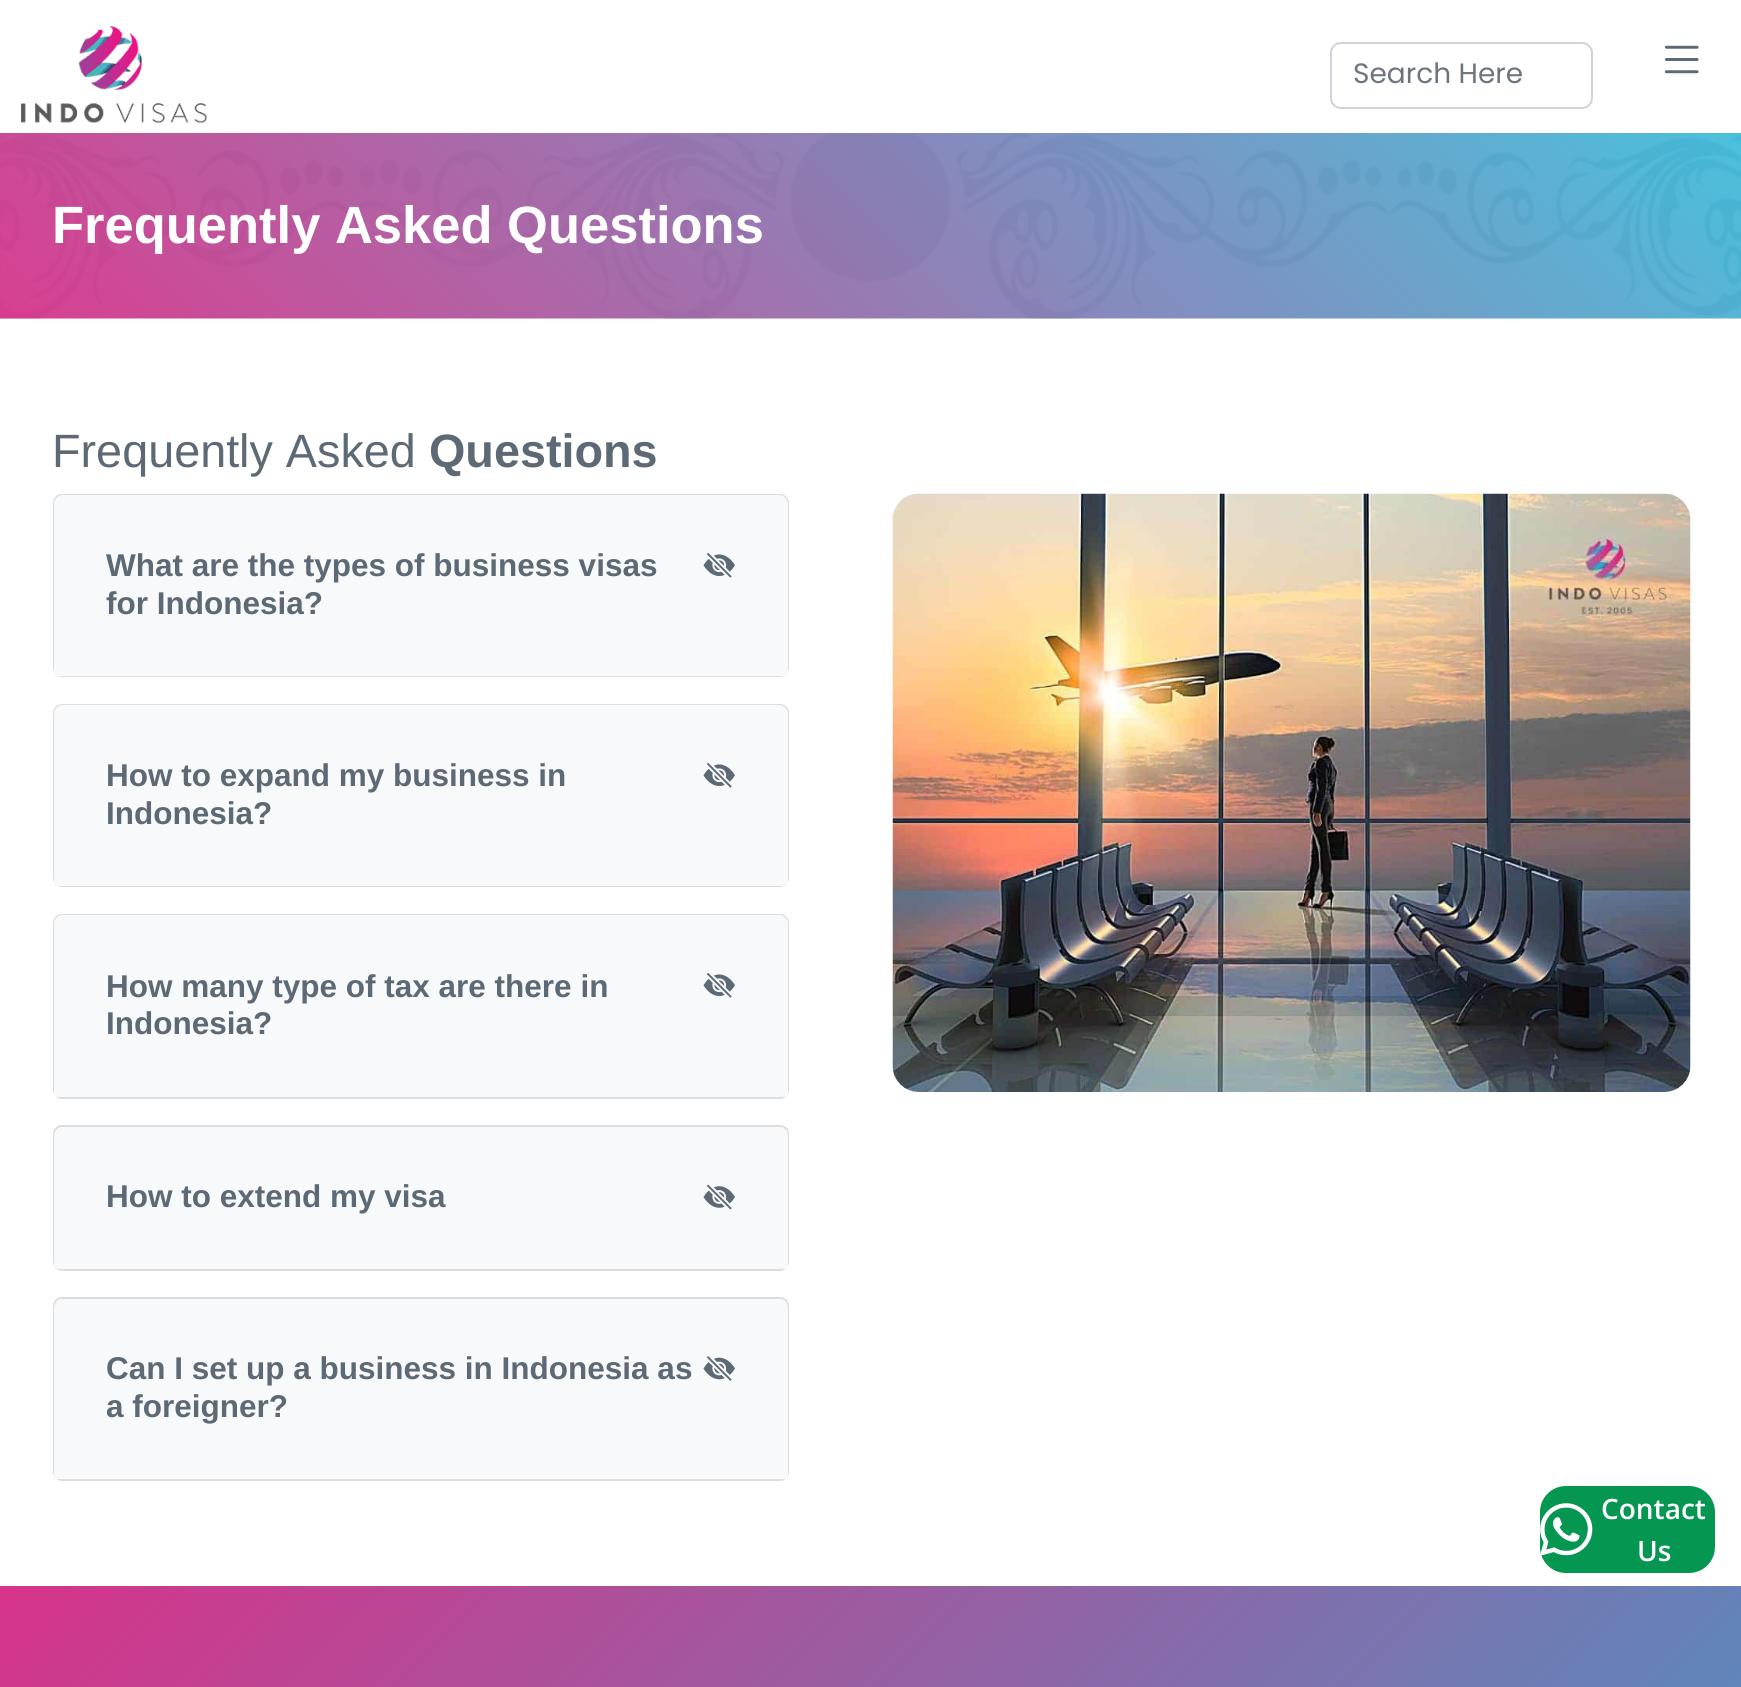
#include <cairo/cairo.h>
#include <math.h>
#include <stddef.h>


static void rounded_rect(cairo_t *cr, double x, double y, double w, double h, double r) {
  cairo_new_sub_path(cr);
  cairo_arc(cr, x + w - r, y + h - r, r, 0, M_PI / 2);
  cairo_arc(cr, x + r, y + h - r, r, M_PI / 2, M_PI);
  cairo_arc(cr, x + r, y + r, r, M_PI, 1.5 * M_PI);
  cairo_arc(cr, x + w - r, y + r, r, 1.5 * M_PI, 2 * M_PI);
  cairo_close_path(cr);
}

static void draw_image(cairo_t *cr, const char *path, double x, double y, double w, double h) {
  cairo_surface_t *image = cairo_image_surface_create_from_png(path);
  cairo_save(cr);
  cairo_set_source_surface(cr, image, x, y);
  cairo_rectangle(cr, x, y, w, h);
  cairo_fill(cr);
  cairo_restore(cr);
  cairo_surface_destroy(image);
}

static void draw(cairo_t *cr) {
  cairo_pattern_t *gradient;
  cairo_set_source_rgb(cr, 1, 1, 1);
  cairo_paint(cr);
  draw_image(cr, "images/1.png", 21, 26, 186, 97);
  rounded_rect(cr, 1331, 43, 261, 65, 10);
  cairo_set_source_rgb(cr, 206 / 255.0, 212 / 255.0, 218 / 255.0);
  cairo_stroke(cr);
  draw_image(cr, "images/2.png", 1664, 45, 35, 29);
  draw_image(cr, "images/3.png", 0, 133, 1741, 186);
  rounded_rect(cr, 54, 495, 734, 181, 8);
  cairo_set_source_rgb(cr, 221 / 255.0, 221 / 255.0, 221 / 255.0);
  cairo_stroke(cr);
  cairo_set_source_rgb(cr, 248 / 255.0, 249 / 255.0, 250 / 255.0);
  cairo_new_path(cr);
  cairo_move_to(cr, 63, 495);
  cairo_line_to(cr, 779, 495);
  cairo_curve_to(cr, 784, 495, 788, 499, 788, 504);
  cairo_line_to(cr, 788, 676);
  cairo_line_to(cr, 54, 676);
  cairo_line_to(cr, 54, 504);
  cairo_curve_to(cr, 54, 499, 58, 495, 63, 495);
  cairo_close_path(cr);
  cairo_fill(cr);
  draw_image(cr, "images/4.png", 703, 552, 32, 26);
  rounded_rect(cr, 54, 705, 734, 181, 8);
  cairo_set_source_rgb(cr, 221 / 255.0, 221 / 255.0, 221 / 255.0);
  cairo_stroke(cr);
  cairo_set_source_rgb(cr, 248 / 255.0, 249 / 255.0, 250 / 255.0);
  cairo_new_path(cr);
  cairo_move_to(cr, 63, 705);
  cairo_line_to(cr, 779, 705);
  cairo_curve_to(cr, 784, 705, 788, 709, 788, 714);
  cairo_line_to(cr, 788, 886);
  cairo_line_to(cr, 54, 886);
  cairo_line_to(cr, 54, 714);
  cairo_curve_to(cr, 54, 709, 58, 705, 63, 705);
  cairo_close_path(cr);
  cairo_fill(cr);
  draw_image(cr, "images/4.png", 703, 762, 32, 26);
  rounded_rect(cr, 54, 915, 734, 183, 8);
  cairo_set_source_rgb(cr, 221 / 255.0, 221 / 255.0, 221 / 255.0);
  cairo_stroke(cr);
  cairo_set_source_rgb(cr, 248 / 255.0, 249 / 255.0, 250 / 255.0);
  cairo_new_path(cr);
  cairo_move_to(cr, 63, 915);
  cairo_line_to(cr, 779, 915);
  cairo_curve_to(cr, 784, 915, 788, 919, 788, 924);
  cairo_line_to(cr, 788, 1097);
  cairo_line_to(cr, 54, 1097);
  cairo_line_to(cr, 54, 924);
  cairo_curve_to(cr, 54, 919, 58, 915, 63, 915);
  cairo_close_path(cr);
  cairo_fill(cr);
  draw_image(cr, "images/4.png", 703, 972, 32, 26);
  rounded_rect(cr, 54, 1126, 734, 144, 8);
  cairo_set_source_rgb(cr, 221 / 255.0, 221 / 255.0, 221 / 255.0);
  cairo_stroke(cr);
  cairo_set_source_rgb(cr, 248 / 255.0, 249 / 255.0, 250 / 255.0);
  cairo_new_path(cr);
  cairo_move_to(cr, 63, 1127);
  cairo_line_to(cr, 779, 1127);
  cairo_curve_to(cr, 784, 1127, 788, 1131, 788, 1136);
  cairo_line_to(cr, 788, 1269);
  cairo_line_to(cr, 54, 1269);
  cairo_line_to(cr, 54, 1136);
  cairo_curve_to(cr, 54, 1131, 58, 1127, 63, 1127);
  cairo_close_path(cr);
  cairo_fill(cr);
  draw_image(cr, "images/5.png", 703, 1184, 32, 26);
  rounded_rect(cr, 54, 1298, 734, 182, 8);
  cairo_set_source_rgb(cr, 221 / 255.0, 221 / 255.0, 221 / 255.0);
  cairo_stroke(cr);
  cairo_set_source_rgb(cr, 248 / 255.0, 249 / 255.0, 250 / 255.0);
  cairo_new_path(cr);
  cairo_move_to(cr, 63, 1299);
  cairo_line_to(cr, 779, 1299);
  cairo_curve_to(cr, 784, 1299, 788, 1303, 788, 1308);
  cairo_line_to(cr, 788, 1479);
  cairo_line_to(cr, 54, 1479);
  cairo_line_to(cr, 54, 1308);
  cairo_curve_to(cr, 54, 1303, 58, 1299, 63, 1299);
  cairo_close_path(cr);
  cairo_fill(cr);
  draw_image(cr, "images/6.png", 703, 1356, 32, 25);
  draw_image(cr, "images/7.png", 892, 493, 799, 599);
  cairo_set_source_rgb(cr, 5 / 255.0, 150 / 255.0, 82 / 255.0);
  rounded_rect(cr, 1540, 1486, 175, 87, 26);
  cairo_fill(cr);
  draw_image(cr, "images/8.png", 1540, 1503, 53, 53);
  gradient = cairo_pattern_create_linear(1573, 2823, 168, 1418);
  cairo_pattern_add_color_stop_rgba(gradient, 0, 33 / 255.0, 178 / 255.0, 212 / 255.0, 1);
  cairo_pattern_add_color_stop_rgba(gradient, 1, 214 / 255.0, 51 / 255.0, 137 / 255.0, 1);
  cairo_set_source(cr, gradient);
  cairo_pattern_destroy(gradient);
  cairo_rectangle(cr, 0, 1586, 1741, 101);
  cairo_fill(cr);
  cairo_select_font_face(cr, "Poppins", CAIRO_FONT_SLANT_NORMAL, CAIRO_FONT_WEIGHT_NORMAL);
  cairo_set_font_size(cr, 28);
  cairo_set_source_rgb(cr, 108 / 255.0, 117 / 255.0, 125 / 255.0);
  cairo_move_to(cr, 1353, 83);
  cairo_show_text(cr, "Search Here");
  cairo_select_font_face(cr, "Liberation Sans", CAIRO_FONT_SLANT_NORMAL, CAIRO_FONT_WEIGHT_BOLD);
  cairo_set_font_size(cr, 52.5);
  cairo_set_source_rgb(cr, 1, 1, 1);
  cairo_move_to(cr, 52, 243);
  cairo_show_text(cr, "Frequently Asked Questions");
  cairo_select_font_face(cr, "Liberation Sans", CAIRO_FONT_SLANT_NORMAL, CAIRO_FONT_WEIGHT_NORMAL);
  cairo_set_font_size(cr, 46.75);
  cairo_set_source_rgb(cr, 93 / 255.0, 105 / 255.0, 117 / 255.0);
  cairo_move_to(cr, 52, 467);
  cairo_show_text(cr, "Frequently Asked");
  cairo_select_font_face(cr, "Liberation Sans", CAIRO_FONT_SLANT_NORMAL, CAIRO_FONT_WEIGHT_BOLD);
  cairo_move_to(cr, 429, 467);
  cairo_show_text(cr, "Questions");
  cairo_set_font_size(cr, 31.5);
  cairo_move_to(cr, 106, 576);
  cairo_show_text(cr, "What are the types of business visas");
  cairo_move_to(cr, 106, 614);
  cairo_show_text(cr, "for Indonesia?");
  cairo_move_to(cr, 106, 786);
  cairo_show_text(cr, "How to expand my business in");
  cairo_move_to(cr, 106, 824);
  cairo_show_text(cr, "Indonesia?");
  cairo_move_to(cr, 106, 997);
  cairo_show_text(cr, "How many type of tax are there in");
  cairo_move_to(cr, 106, 1034);
  cairo_show_text(cr, "Indonesia?");
  cairo_move_to(cr, 106, 1207);
  cairo_show_text(cr, "How to extend my visa");
  cairo_move_to(cr, 106, 1379);
  cairo_show_text(cr, "Can I set up a business in Indonesia as");
  cairo_move_to(cr, 106, 1417);
  cairo_show_text(cr, "a foreigner?");
  cairo_select_font_face(cr, "Open Sans SemiBold", CAIRO_FONT_SLANT_NORMAL, CAIRO_FONT_WEIGHT_NORMAL);
  cairo_set_font_size(cr, 28);
  cairo_set_source_rgb(cr, 1, 1, 1);
  cairo_move_to(cr, 1601, 1519);
  cairo_show_text(cr, "Contact");
  cairo_move_to(cr, 1637, 1561);
  cairo_show_text(cr, "Us");
}

int main(void) {
  cairo_surface_t *surface = cairo_image_surface_create(CAIRO_FORMAT_RGB24, 1741, 1687);
  cairo_t *cr = cairo_create(surface);
  cairo_font_options_t *options = cairo_font_options_create();
  cairo_font_options_set_hint_metrics(options, CAIRO_HINT_METRICS_OFF);
  cairo_font_options_set_hint_style(options, CAIRO_HINT_STYLE_NONE);
  cairo_set_font_options(cr, options);
  cairo_set_miter_limit(cr, 4);
  draw(cr);
  cairo_surface_write_to_png(surface, "out.png");
  cairo_font_options_destroy(options);
  cairo_destroy(cr);
  cairo_surface_destroy(surface);
  return 0;
}
